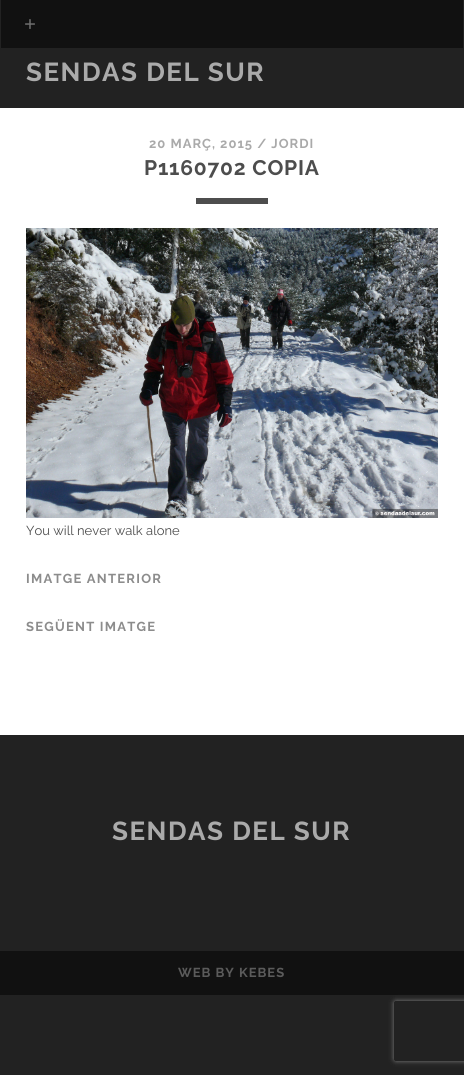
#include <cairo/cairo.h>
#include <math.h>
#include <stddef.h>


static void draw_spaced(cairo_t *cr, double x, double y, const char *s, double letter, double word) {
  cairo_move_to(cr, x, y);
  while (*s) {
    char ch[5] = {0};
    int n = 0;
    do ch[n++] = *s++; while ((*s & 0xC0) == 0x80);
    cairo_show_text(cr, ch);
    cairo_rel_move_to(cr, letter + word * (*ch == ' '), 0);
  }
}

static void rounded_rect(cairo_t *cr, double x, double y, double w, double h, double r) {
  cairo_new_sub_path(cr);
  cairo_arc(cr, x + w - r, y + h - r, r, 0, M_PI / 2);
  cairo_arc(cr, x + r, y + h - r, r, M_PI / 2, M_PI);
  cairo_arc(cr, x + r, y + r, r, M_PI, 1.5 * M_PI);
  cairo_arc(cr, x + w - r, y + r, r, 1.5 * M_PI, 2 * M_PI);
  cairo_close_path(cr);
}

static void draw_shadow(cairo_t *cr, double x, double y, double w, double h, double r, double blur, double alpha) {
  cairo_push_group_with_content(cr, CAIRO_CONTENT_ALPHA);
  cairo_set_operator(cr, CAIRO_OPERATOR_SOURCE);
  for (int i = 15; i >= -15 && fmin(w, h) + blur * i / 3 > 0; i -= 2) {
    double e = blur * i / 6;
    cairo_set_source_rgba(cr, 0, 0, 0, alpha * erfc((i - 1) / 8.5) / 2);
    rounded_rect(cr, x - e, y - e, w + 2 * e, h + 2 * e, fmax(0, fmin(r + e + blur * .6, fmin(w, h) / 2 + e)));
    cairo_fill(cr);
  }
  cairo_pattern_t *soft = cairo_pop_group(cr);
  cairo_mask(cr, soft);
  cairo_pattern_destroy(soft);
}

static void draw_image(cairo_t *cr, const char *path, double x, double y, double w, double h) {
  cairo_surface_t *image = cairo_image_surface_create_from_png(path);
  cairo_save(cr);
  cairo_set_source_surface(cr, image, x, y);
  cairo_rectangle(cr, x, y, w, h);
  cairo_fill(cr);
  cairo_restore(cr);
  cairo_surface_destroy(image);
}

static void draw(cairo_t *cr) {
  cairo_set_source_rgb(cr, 34 / 255.0, 34 / 255.0, 34 / 255.0);
  cairo_paint(cr);
  cairo_set_source_rgb(cr, 17 / 255.0, 17 / 255.0, 17 / 255.0);
  cairo_rectangle(cr, 1, 0, 462, 48);
  cairo_fill(cr);
  cairo_set_source_rgb(cr, 1, 1, 1);
  cairo_rectangle(cr, 0, 108, 464, 627);
  cairo_fill(cr);
  cairo_set_source_rgb(cr, 77 / 255.0, 77 / 255.0, 77 / 255.0);
  cairo_rectangle(cr, 196, 198, 72, 6);
  cairo_fill(cr);
  draw_image(cr, "images/1.png", 26, 228, 412, 290);
  cairo_set_source_rgb(cr, 17 / 255.0, 17 / 255.0, 17 / 255.0);
  cairo_rectangle(cr, 0, 951, 464, 44);
  cairo_fill(cr);
  cairo_save(cr);
  cairo_set_fill_rule(cr, CAIRO_FILL_RULE_EVEN_ODD);
  cairo_new_path(cr);
  cairo_move_to(cr, 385, 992);
  cairo_line_to(cr, 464, 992);
  cairo_line_to(cr, 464, 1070);
  cairo_line_to(cr, 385, 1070);
  cairo_close_path(cr);
  cairo_move_to(cr, 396, 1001);
  cairo_line_to(cr, 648, 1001);
  cairo_curve_to(cr, 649, 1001, 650, 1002, 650, 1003);
  cairo_line_to(cr, 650, 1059);
  cairo_curve_to(cr, 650, 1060, 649, 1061, 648, 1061);
  cairo_line_to(cr, 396, 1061);
  cairo_curve_to(cr, 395, 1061, 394, 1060, 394, 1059);
  cairo_line_to(cr, 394, 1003);
  cairo_curve_to(cr, 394, 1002, 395, 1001, 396, 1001);
  cairo_close_path(cr);
  cairo_clip(cr);
  cairo_set_source_rgb(cr, 128 / 255.0, 128 / 255.0, 128 / 255.0);
  draw_shadow(cr, 394, 1001, 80, 60, 2, 2.5, 1);
  cairo_restore(cr);
  cairo_select_font_face(cr, "Liberation Serif", CAIRO_FONT_SLANT_NORMAL, CAIRO_FONT_WEIGHT_BOLD);
  cairo_set_font_size(cr, 21);
  cairo_set_source_rgb(cr, 112 / 255.0, 112 / 255.0, 112 / 255.0);
  cairo_move_to(cr, 24, 31);
  cairo_show_text(cr, "+");
  cairo_select_font_face(cr, "Raleway", CAIRO_FONT_SLANT_NORMAL, CAIRO_FONT_WEIGHT_BOLD);
  cairo_set_font_size(cr, 26);
  cairo_set_source_rgb(cr, 170 / 255.0, 170 / 255.0, 170 / 255.0);
  draw_spaced(cr, 26, 81, "SENDAS DEL SUR", 1.5, 0);
  cairo_set_font_size(cr, 13);
  draw_spaced(cr, 149, 148, "20 MARÇ, 2015 / JORDI", 1, 0);
  cairo_set_font_size(cr, 21);
  cairo_set_source_rgb(cr, 77 / 255.0, 77 / 255.0, 77 / 255.0);
  draw_spaced(cr, 144, 175, "P1160702 COPIA", 0.8, 0);
  cairo_select_font_face(cr, "Raleway", CAIRO_FONT_SLANT_NORMAL, CAIRO_FONT_WEIGHT_NORMAL);
  cairo_set_font_size(cr, 13);
  cairo_move_to(cr, 26, 535);
  cairo_show_text(cr, "You will never walk alone");
  cairo_select_font_face(cr, "Raleway", CAIRO_FONT_SLANT_NORMAL, CAIRO_FONT_WEIGHT_BOLD);
  cairo_set_source_rgb(cr, 140 / 255.0, 140 / 255.0, 140 / 255.0);
  draw_spaced(cr, 26, 583, "IMATGE ANTERIOR", 1.25, 0);
  draw_spaced(cr, 26, 631, "SEGÜENT IMATGE", 1.25, 0);
  cairo_set_font_size(cr, 26);
  cairo_set_source_rgb(cr, 170 / 255.0, 170 / 255.0, 170 / 255.0);
  draw_spaced(cr, 112, 840, "SENDAS DEL SUR", 1.5, 0);
  cairo_set_font_size(cr, 13);
  cairo_set_source_rgb(cr, 91 / 255.0, 91 / 255.0, 91 / 255.0);
  draw_spaced(cr, 178, 977, "WEB BY KEBES", 1, 0);
}

int main(void) {
  cairo_surface_t *surface = cairo_image_surface_create(CAIRO_FORMAT_RGB24, 464, 1075);
  cairo_t *cr = cairo_create(surface);
  cairo_font_options_t *options = cairo_font_options_create();
  cairo_font_options_set_hint_metrics(options, CAIRO_HINT_METRICS_OFF);
  cairo_font_options_set_hint_style(options, CAIRO_HINT_STYLE_NONE);
  cairo_set_font_options(cr, options);
  cairo_set_miter_limit(cr, 4);
  draw(cr);
  cairo_surface_write_to_png(surface, "out.png");
  cairo_font_options_destroy(options);
  cairo_destroy(cr);
  cairo_surface_destroy(surface);
  return 0;
}
